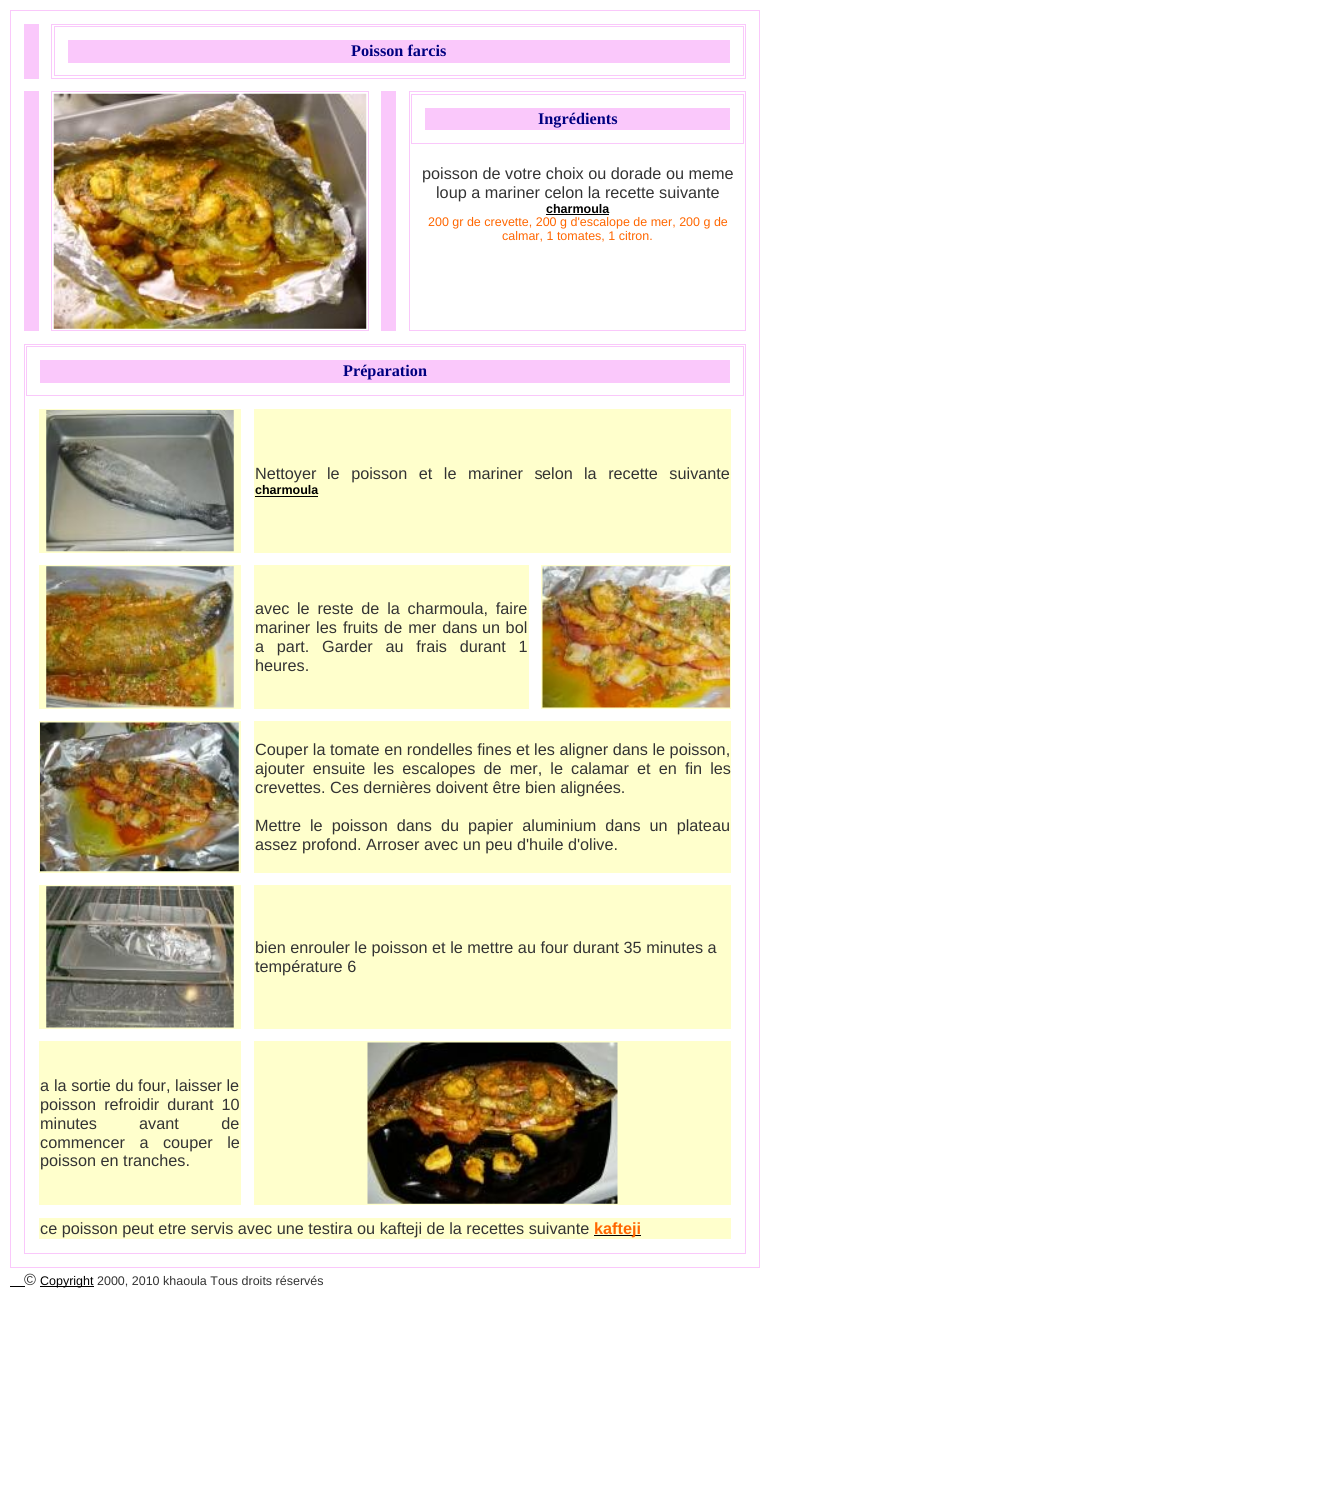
#include <cairo/cairo.h>
#include <math.h>
#include <stddef.h>


static void draw_spaced(cairo_t *cr, double x, double y, const char *s, double letter, double word) {
  cairo_move_to(cr, x, y);
  while (*s) {
    char ch[5] = {0};
    int n = 0;
    do ch[n++] = *s++; while ((*s & 0xC0) == 0x80);
    cairo_show_text(cr, ch);
    cairo_rel_move_to(cr, letter + word * (*ch == ' '), 0);
  }
}

static void draw_image(cairo_t *cr, const char *path, double x, double y, double w, double h) {
  cairo_surface_t *image = cairo_image_surface_create_from_png(path);
  cairo_save(cr);
  cairo_set_source_surface(cr, image, x, y);
  cairo_rectangle(cr, x, y, w, h);
  cairo_fill(cr);
  cairo_restore(cr);
  cairo_surface_destroy(image);
}

static void draw(cairo_t *cr) {
  cairo_set_source_rgb(cr, 1, 1, 1);
  cairo_paint(cr);
  cairo_rectangle(cr, 10.5, 10.5, 749, 1257);
  cairo_set_source_rgb(cr, 250 / 255.0, 200 / 255.0, 251 / 255.0);
  cairo_set_line_width(cr, 1);
  cairo_stroke(cr);
  cairo_rectangle(cr, 24, 24, 15, 55);
  cairo_fill(cr);
  cairo_rectangle(cr, 51.5, 24.5, 694, 54);
  cairo_stroke(cr);
  cairo_rectangle(cr, 54.5, 26.5, 689, 49);
  cairo_stroke(cr);
  cairo_rectangle(cr, 68, 40, 662, 23);
  cairo_fill(cr);
  cairo_rectangle(cr, 24, 91, 15, 240);
  cairo_fill(cr);
  cairo_rectangle(cr, 51.5, 91.5, 317, 239);
  cairo_stroke(cr);
  draw_image(cr, "images/1.png", 53, 93, 314, 236);
  cairo_rectangle(cr, 381, 91, 15, 240);
  cairo_fill(cr);
  cairo_rectangle(cr, 409.5, 91.5, 336, 239);
  cairo_stroke(cr);
  cairo_rectangle(cr, 411.5, 94.5, 332, 49);
  cairo_stroke(cr);
  cairo_rectangle(cr, 425, 108, 305, 22);
  cairo_fill(cr);
  cairo_set_source_rgb(cr, 0, 0, 0);
  cairo_rectangle(cr, 546, 214, 63, 1);
  cairo_fill(cr);
  cairo_rectangle(cr, 24.5, 344.5, 721, 909);
  cairo_set_source_rgb(cr, 250 / 255.0, 200 / 255.0, 251 / 255.0);
  cairo_stroke(cr);
  cairo_rectangle(cr, 26.5, 346.5, 717, 49);
  cairo_stroke(cr);
  cairo_rectangle(cr, 40, 360, 690, 23);
  cairo_fill(cr);
  cairo_set_source_rgb(cr, 1, 1, 204 / 255.0);
  cairo_rectangle(cr, 39, 409, 202, 144);
  cairo_fill(cr);
  draw_image(cr, "images/2.png", 46, 410, 188, 142);
  cairo_rectangle(cr, 254, 409, 477, 144);
  cairo_fill(cr);
  cairo_set_source_rgb(cr, 0, 0, 0);
  cairo_rectangle(cr, 255, 496, 63, 1);
  cairo_fill(cr);
  cairo_set_source_rgb(cr, 1, 1, 204 / 255.0);
  cairo_rectangle(cr, 39, 565, 202, 144);
  cairo_fill(cr);
  draw_image(cr, "images/3.png", 46, 566, 188, 142);
  cairo_rectangle(cr, 254, 565, 275, 144);
  cairo_fill(cr);
  cairo_rectangle(cr, 541, 565, 190, 144);
  cairo_fill(cr);
  draw_image(cr, "images/4.png", 542, 566, 188, 142);
  cairo_rectangle(cr, 39, 721, 202, 152);
  cairo_fill(cr);
  draw_image(cr, "images/5.png", 40, 722, 199, 150);
  cairo_rectangle(cr, 254, 721, 477, 152);
  cairo_fill(cr);
  cairo_rectangle(cr, 39, 885, 202, 144);
  cairo_fill(cr);
  draw_image(cr, "images/6.png", 46, 886, 188, 142);
  cairo_rectangle(cr, 254, 885, 477, 144);
  cairo_fill(cr);
  cairo_rectangle(cr, 39, 1041, 202, 164);
  cairo_fill(cr);
  cairo_rectangle(cr, 254, 1041, 477, 164);
  cairo_fill(cr);
  draw_image(cr, "images/7.png", 367, 1042, 251, 162);
  cairo_rectangle(cr, 39, 1218, 692, 21);
  cairo_fill(cr);
  cairo_set_source_rgb(cr, 0, 0, 0);
  cairo_rectangle(cr, 594, 1235, 47, 1);
  cairo_fill(cr);
  cairo_rectangle(cr, 10, 1286, 15, 1);
  cairo_fill(cr);
  cairo_rectangle(cr, 40, 1286, 54, 1);
  cairo_fill(cr);
  cairo_select_font_face(cr, "Liberation Serif", CAIRO_FONT_SLANT_NORMAL, CAIRO_FONT_WEIGHT_BOLD);
  cairo_set_font_size(cr, 16.25);
  cairo_set_source_rgb(cr, 0, 0, 128 / 255.0);
  cairo_move_to(cr, 351, 56);
  cairo_show_text(cr, "Poisson farcis");
  cairo_move_to(cr, 538, 124);
  cairo_show_text(cr, "Ingrédients");
  cairo_select_font_face(cr, "Liberation Sans", CAIRO_FONT_SLANT_NORMAL, CAIRO_FONT_WEIGHT_NORMAL);
  cairo_set_source_rgb(cr, 51 / 255.0, 51 / 255.0, 51 / 255.0);
  cairo_move_to(cr, 422, 179);
  cairo_show_text(cr, "poisson de votre choix ou dorade ou meme");
  cairo_move_to(cr, 436, 198);
  cairo_show_text(cr, "loup a mariner celon la recette suivante");
  cairo_select_font_face(cr, "Liberation Sans", CAIRO_FONT_SLANT_NORMAL, CAIRO_FONT_WEIGHT_BOLD);
  cairo_set_font_size(cr, 12.5);
  cairo_set_source_rgb(cr, 0, 0, 0);
  cairo_move_to(cr, 546, 213);
  cairo_show_text(cr, "charmoula");
  cairo_select_font_face(cr, "Liberation Sans", CAIRO_FONT_SLANT_NORMAL, CAIRO_FONT_WEIGHT_NORMAL);
  cairo_set_source_rgb(cr, 1, 102 / 255.0, 0);
  cairo_move_to(cr, 428, 226);
  cairo_show_text(cr, "200 gr de crevette, 200 g d'escalope de mer, 200 g de");
  cairo_move_to(cr, 502, 240);
  cairo_show_text(cr, "calmar, 1 tomates, 1 citron.");
  cairo_select_font_face(cr, "Liberation Serif", CAIRO_FONT_SLANT_NORMAL, CAIRO_FONT_WEIGHT_BOLD);
  cairo_set_font_size(cr, 16.25);
  cairo_set_source_rgb(cr, 0, 0, 128 / 255.0);
  cairo_move_to(cr, 343, 376);
  cairo_show_text(cr, "Préparation");
  cairo_select_font_face(cr, "Liberation Sans", CAIRO_FONT_SLANT_NORMAL, CAIRO_FONT_WEIGHT_NORMAL);
  cairo_set_source_rgb(cr, 51 / 255.0, 51 / 255.0, 51 / 255.0);
  cairo_move_to(cr, 255, 479);
  cairo_show_text(cr, "Nettoyer");
  draw_spaced(cr, 327, 479, "le poisson et le mariner s", 0, 7);
  cairo_move_to(cr, 542, 479);
  cairo_show_text(cr, "elon");
  draw_spaced(cr, 584, 479, "la recette suivante", 0, 7);
  cairo_select_font_face(cr, "Liberation Sans", CAIRO_FONT_SLANT_NORMAL, CAIRO_FONT_WEIGHT_BOLD);
  cairo_set_font_size(cr, 12.5);
  cairo_set_source_rgb(cr, 0, 0, 0);
  cairo_move_to(cr, 255, 494);
  cairo_show_text(cr, "charmoula");
  cairo_select_font_face(cr, "Liberation Sans", CAIRO_FONT_SLANT_NORMAL, CAIRO_FONT_WEIGHT_NORMAL);
  cairo_set_font_size(cr, 16.25);
  cairo_set_source_rgb(cr, 51 / 255.0, 51 / 255.0, 51 / 255.0);
  cairo_move_to(cr, 255, 614);
  cairo_show_text(cr, "avec");
  draw_spaced(cr, 297, 614, "le reste de la charmoula, faire", 0, 3.25);
  draw_spaced(cr, 255, 633, "mariner les fruits de mer dans", 0, 1.5);
  draw_spaced(cr, 482, 633, "un bol", 0, 1);
  draw_spaced(cr, 255, 652, "a part. Garder au frais durant 1", 0, 8.25);
  cairo_move_to(cr, 255, 671);
  cairo_show_text(cr, "heures.");
  cairo_move_to(cr, 255, 755);
  cairo_show_text(cr, "Couper la tomate en rondelles fines et les aligner dans le poisson,");
  draw_spaced(cr, 255, 774, "ajouter ensuite les escalopes de mer, le calamar et en fin les", 0, 3.6);
  cairo_move_to(cr, 255, 793);
  cairo_show_text(cr, "crevettes. Ces dernières doivent être bien alignées.");
  cairo_move_to(cr, 255, 831);
  cairo_show_text(cr, "Mettre");
  draw_spaced(cr, 310, 831, "le poisson dans du papier aluminium dans un plateau", 0, 4.5);
  cairo_move_to(cr, 255, 850);
  cairo_show_text(cr, "assez profond. Arroser avec un peu d'huile d'olive.");
  cairo_move_to(cr, 255, 953);
  cairo_show_text(cr, "bien enrouler le poisson et le mettre au four durant 35 minutes a");
  cairo_move_to(cr, 255, 972);
  cairo_show_text(cr, "température 6");
  cairo_move_to(cr, 40, 1091);
  cairo_show_text(cr, "a");
  cairo_move_to(cr, 54, 1091);
  cairo_show_text(cr, "la sortie du four, laisser le");
  draw_spaced(cr, 40, 1110, "poisson refroidir durant 10", 0, 3.6);
  cairo_move_to(cr, 40, 1129);
  cairo_show_text(cr, "minutes");
  draw_spaced(cr, 139, 1129, "avant de", 0, 38);
  draw_spaced(cr, 40, 1148, "commencer a couper le", 0, 10);
  cairo_move_to(cr, 40, 1166);
  cairo_show_text(cr, "poisson en tranches.");
  cairo_move_to(cr, 40, 1234);
  cairo_show_text(cr, "ce poisson peut etre servis avec une testira ou kafteji de la recettes suivante");
  cairo_select_font_face(cr, "Liberation Sans", CAIRO_FONT_SLANT_NORMAL, CAIRO_FONT_WEIGHT_BOLD);
  cairo_set_source_rgb(cr, 1, 102 / 255.0, 0);
  cairo_move_to(cr, 594, 1234);
  cairo_show_text(cr, "kafteji");
  cairo_select_font_face(cr, "Liberation Sans", CAIRO_FONT_SLANT_NORMAL, CAIRO_FONT_WEIGHT_NORMAL);
  cairo_set_source_rgb(cr, 51 / 255.0, 51 / 255.0, 51 / 255.0);
  cairo_move_to(cr, 24, 1285);
  cairo_show_text(cr, "©");
  cairo_set_font_size(cr, 12.5);
  cairo_set_source_rgb(cr, 0, 0, 0);
  cairo_move_to(cr, 40, 1285);
  cairo_show_text(cr, "Copyright");
  cairo_set_source_rgb(cr, 51 / 255.0, 51 / 255.0, 51 / 255.0);
  cairo_move_to(cr, 97, 1285);
  cairo_show_text(cr, "2000, 2010 khaoula Tous droits réservés");
}

int main(void) {
  cairo_surface_t *surface = cairo_image_surface_create(CAIRO_FORMAT_RGB24, 1341, 1492);
  cairo_t *cr = cairo_create(surface);
  cairo_font_options_t *options = cairo_font_options_create();
  cairo_font_options_set_hint_metrics(options, CAIRO_HINT_METRICS_OFF);
  cairo_font_options_set_hint_style(options, CAIRO_HINT_STYLE_NONE);
  cairo_set_font_options(cr, options);
  cairo_set_miter_limit(cr, 4);
  draw(cr);
  cairo_surface_write_to_png(surface, "out.png");
  cairo_font_options_destroy(options);
  cairo_destroy(cr);
  cairo_surface_destroy(surface);
  return 0;
}
